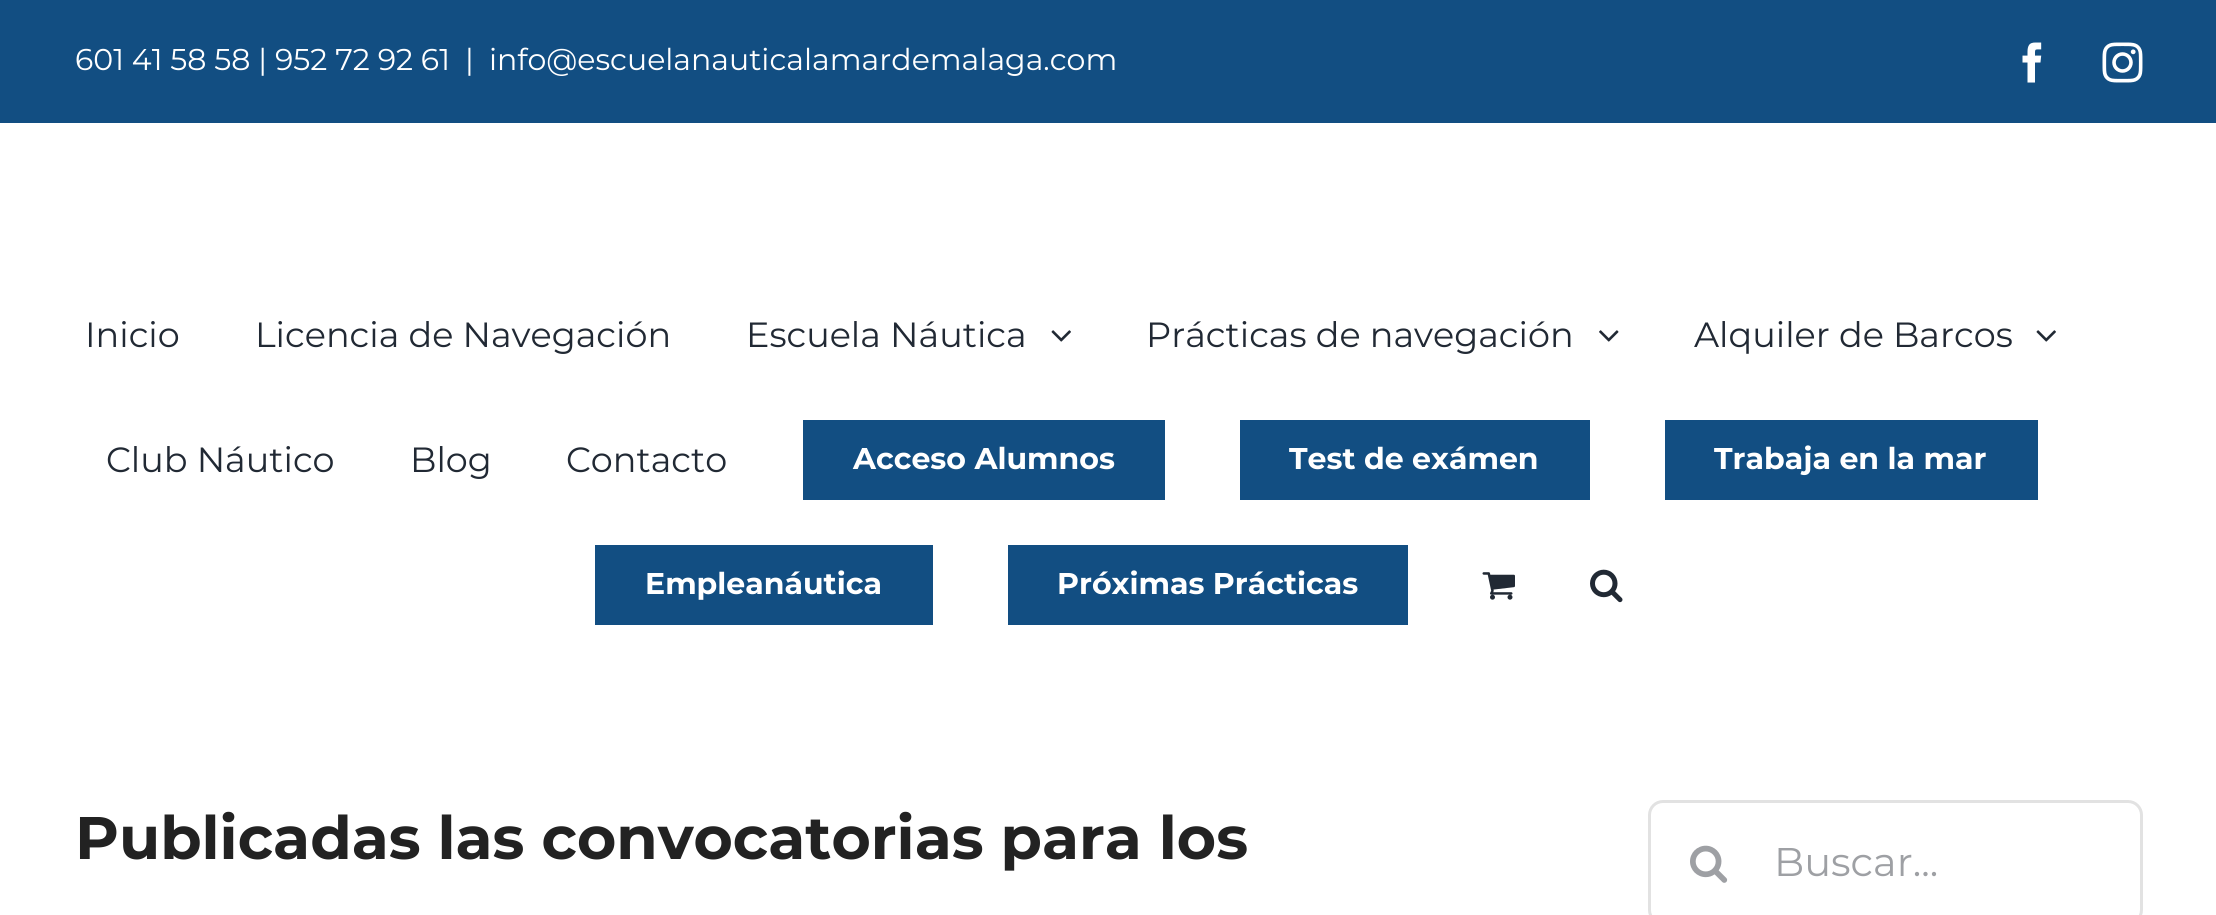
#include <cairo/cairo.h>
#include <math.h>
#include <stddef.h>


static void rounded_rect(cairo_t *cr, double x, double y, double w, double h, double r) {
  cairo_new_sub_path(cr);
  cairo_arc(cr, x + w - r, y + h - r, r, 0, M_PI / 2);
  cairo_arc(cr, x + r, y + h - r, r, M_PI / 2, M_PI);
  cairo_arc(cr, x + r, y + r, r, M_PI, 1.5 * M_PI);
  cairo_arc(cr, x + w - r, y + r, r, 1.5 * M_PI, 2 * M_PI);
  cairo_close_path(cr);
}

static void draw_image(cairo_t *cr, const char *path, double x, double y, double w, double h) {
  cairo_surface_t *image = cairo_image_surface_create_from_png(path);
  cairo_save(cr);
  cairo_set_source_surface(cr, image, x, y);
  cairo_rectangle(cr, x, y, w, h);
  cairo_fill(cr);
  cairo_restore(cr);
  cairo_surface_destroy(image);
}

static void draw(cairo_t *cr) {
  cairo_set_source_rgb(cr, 1, 1, 1);
  cairo_paint(cr);
  cairo_set_source_rgb(cr, 18 / 255.0, 78 / 255.0, 130 / 255.0);
  cairo_rectangle(cr, 0, 0, 2216, 123);
  cairo_fill(cr);
  draw_image(cr, "images/1.png", 2022, 42, 20, 41);
  draw_image(cr, "images/2.png", 2102, 42, 41, 41);
  draw_image(cr, "images/3.png", 1051, 330, 20, 12);
  draw_image(cr, "images/4.png", 1599, 330, 20, 12);
  draw_image(cr, "images/3.png", 2036, 330, 20, 12);
  cairo_rectangle(cr, 803, 420, 362, 80);
  cairo_fill(cr);
  cairo_rectangle(cr, 1240, 420, 350, 80);
  cairo_fill(cr);
  cairo_rectangle(cr, 1665, 420, 373, 80);
  cairo_fill(cr);
  cairo_rectangle(cr, 595, 545, 338, 80);
  cairo_fill(cr);
  cairo_rectangle(cr, 1008, 545, 400, 80);
  cairo_fill(cr);
  draw_image(cr, "images/5.png", 1482, 572, 33, 28);
  draw_image(cr, "images/6.png", 1590, 569, 33, 34);
  rounded_rect(cr, 1649.5, 801.5, 492, 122, 13.5);
  cairo_set_source_rgb(cr, 226 / 255.0, 226 / 255.0, 226 / 255.0);
  cairo_set_line_width(cr, 3);
  cairo_stroke(cr);
  draw_image(cr, "images/7.png", 1690, 845, 38, 38);
  cairo_select_font_face(cr, "Montserrat", CAIRO_FONT_SLANT_NORMAL, CAIRO_FONT_WEIGHT_NORMAL);
  cairo_set_font_size(cr, 30);
  cairo_set_source_rgb(cr, 1, 1, 1);
  cairo_move_to(cr, 75, 70);
  cairo_show_text(cr, "601 41 58 58 | 952 72 92 61");
  cairo_move_to(cr, 465, 70);
  cairo_show_text(cr, "|");
  cairo_move_to(cr, 489, 70);
  cairo_show_text(cr, "info@escuelanauticalamardemalaga.com");
  cairo_set_font_size(cr, 35);
  cairo_set_source_rgb(cr, 33 / 255.0, 41 / 255.0, 52 / 255.0);
  cairo_move_to(cr, 85, 347);
  cairo_show_text(cr, "Inicio");
  cairo_move_to(cr, 255, 347);
  cairo_show_text(cr, "Licencia de Navegación");
  cairo_move_to(cr, 746, 347);
  cairo_show_text(cr, "Escuela Náutica");
  cairo_move_to(cr, 1146, 347);
  cairo_show_text(cr, "Prácticas de navegación");
  cairo_move_to(cr, 1694, 347);
  cairo_show_text(cr, "Alquiler de Barcos");
  cairo_move_to(cr, 106, 472);
  cairo_show_text(cr, "Club Náutico");
  cairo_move_to(cr, 410, 472);
  cairo_show_text(cr, "Blog");
  cairo_move_to(cr, 566, 472);
  cairo_show_text(cr, "Contacto");
  cairo_select_font_face(cr, "Montserrat", CAIRO_FONT_SLANT_NORMAL, CAIRO_FONT_WEIGHT_BOLD);
  cairo_set_font_size(cr, 30);
  cairo_set_source_rgb(cr, 1, 1, 1);
  cairo_move_to(cr, 853, 469);
  cairo_show_text(cr, "Acceso Alumnos");
  cairo_move_to(cr, 1289, 469);
  cairo_show_text(cr, "Test de exámen");
  cairo_move_to(cr, 1714, 469);
  cairo_show_text(cr, "Trabaja en la mar");
  cairo_move_to(cr, 645, 594);
  cairo_show_text(cr, "Empleanáutica");
  cairo_move_to(cr, 1057, 594);
  cairo_show_text(cr, "Próximas Prácticas");
  cairo_set_font_size(cr, 60);
  cairo_set_source_rgb(cr, 34 / 255.0, 34 / 255.0, 34 / 255.0);
  cairo_move_to(cr, 75, 859);
  cairo_show_text(cr, "Publicadas las convocatorias para los");
  cairo_select_font_face(cr, "Montserrat", CAIRO_FONT_SLANT_NORMAL, CAIRO_FONT_WEIGHT_NORMAL);
  cairo_set_font_size(cr, 40);
  cairo_set_source_rgb(cr, 158 / 255.0, 160 / 255.0, 164 / 255.0);
  cairo_move_to(cr, 1774, 876);
  cairo_show_text(cr, "Buscar...");
}

int main(void) {
  cairo_surface_t *surface = cairo_image_surface_create(CAIRO_FORMAT_RGB24, 2216, 915);
  cairo_t *cr = cairo_create(surface);
  cairo_font_options_t *options = cairo_font_options_create();
  cairo_font_options_set_hint_metrics(options, CAIRO_HINT_METRICS_OFF);
  cairo_font_options_set_hint_style(options, CAIRO_HINT_STYLE_NONE);
  cairo_set_font_options(cr, options);
  cairo_set_miter_limit(cr, 4);
  draw(cr);
  cairo_surface_write_to_png(surface, "out.png");
  cairo_font_options_destroy(options);
  cairo_destroy(cr);
  cairo_surface_destroy(surface);
  return 0;
}
